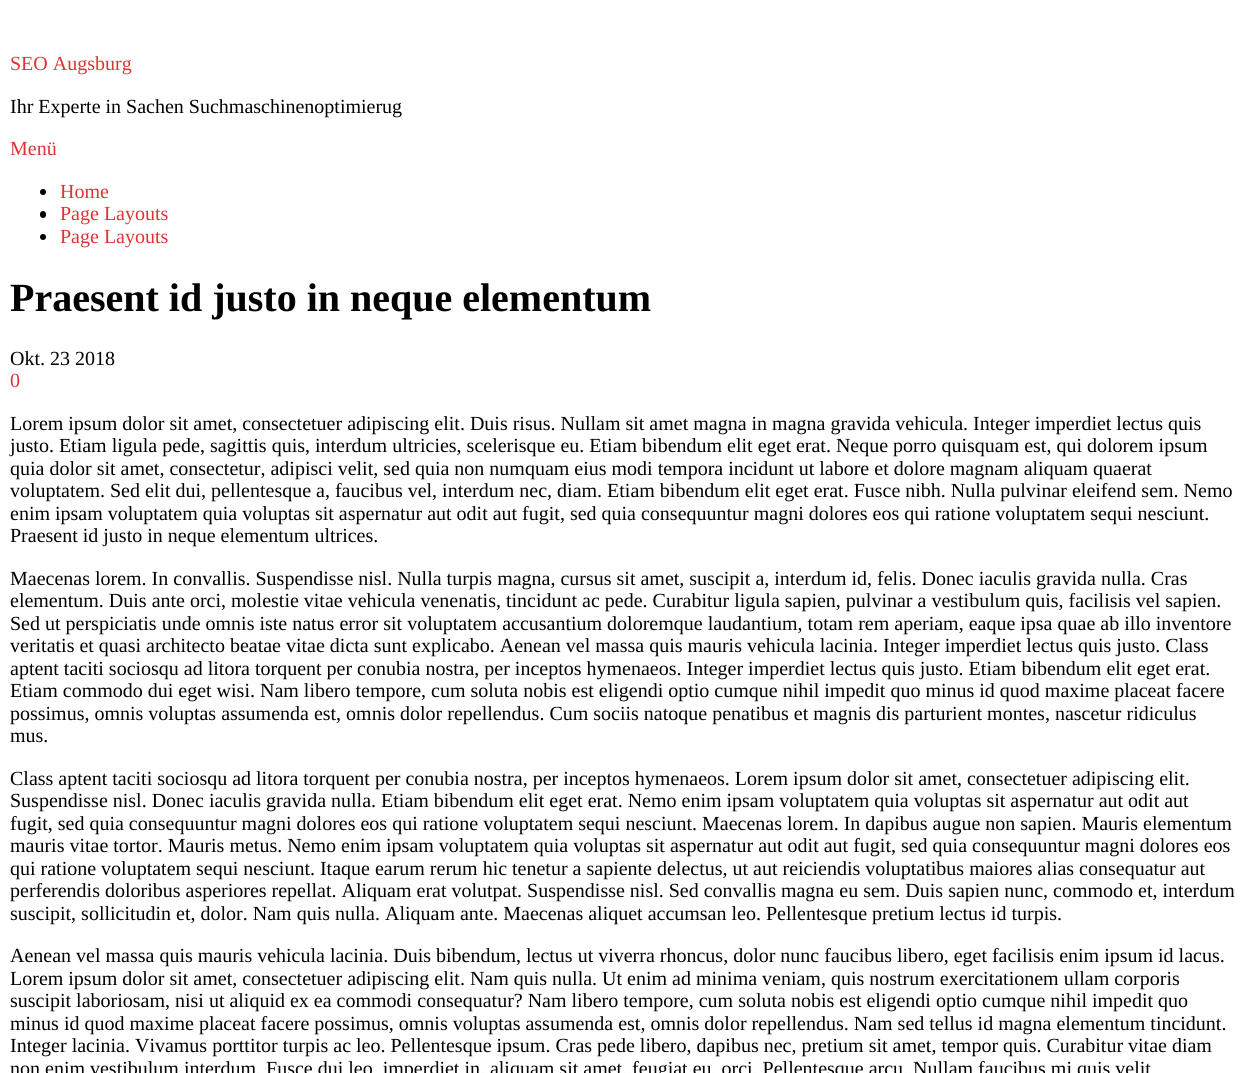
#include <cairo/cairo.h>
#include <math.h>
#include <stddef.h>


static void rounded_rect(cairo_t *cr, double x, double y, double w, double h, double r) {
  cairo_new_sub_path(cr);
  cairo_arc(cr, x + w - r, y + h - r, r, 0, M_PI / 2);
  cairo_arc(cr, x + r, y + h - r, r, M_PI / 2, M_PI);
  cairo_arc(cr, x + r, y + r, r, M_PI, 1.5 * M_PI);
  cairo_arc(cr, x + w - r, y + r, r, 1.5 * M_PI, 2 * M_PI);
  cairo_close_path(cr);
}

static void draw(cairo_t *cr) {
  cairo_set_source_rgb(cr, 1, 1, 1);
  cairo_paint(cr);
  cairo_set_source_rgb(cr, 0, 0, 0);
  cairo_arc(cr, 43, 192, 3, 0, 2 * M_PI);
  cairo_fill(cr);
  rounded_rect(cr, 40, 211, 6, 7, 3);
  cairo_fill(cr);
  cairo_arc(cr, 43, 237, 3, 0, 2 * M_PI);
  cairo_fill(cr);
  cairo_select_font_face(cr, "Liberation Serif", CAIRO_FONT_SLANT_NORMAL, CAIRO_FONT_WEIGHT_NORMAL);
  cairo_set_font_size(cr, 20);
  cairo_set_source_rgb(cr, 221 / 255.0, 51 / 255.0, 51 / 255.0);
  cairo_move_to(cr, 10, 70);
  cairo_show_text(cr, "SEO Augsburg");
  cairo_set_source_rgb(cr, 0, 0, 0);
  cairo_move_to(cr, 10, 113);
  cairo_show_text(cr, "Ihr Experte in Sachen Suchmaschinenoptimierug");
  cairo_set_source_rgb(cr, 221 / 255.0, 51 / 255.0, 51 / 255.0);
  cairo_move_to(cr, 10, 155);
  cairo_show_text(cr, "Menü");
  cairo_move_to(cr, 60, 198);
  cairo_show_text(cr, "Home");
  cairo_move_to(cr, 60, 220);
  cairo_show_text(cr, "Page Layouts");
  cairo_move_to(cr, 60, 243);
  cairo_show_text(cr, "Page Layouts");
  cairo_select_font_face(cr, "Liberation Serif", CAIRO_FONT_SLANT_NORMAL, CAIRO_FONT_WEIGHT_BOLD);
  cairo_set_font_size(cr, 40);
  cairo_set_source_rgb(cr, 0, 0, 0);
  cairo_move_to(cr, 10, 311);
  cairo_show_text(cr, "Praesent id justo in neque elementum");
  cairo_select_font_face(cr, "Liberation Serif", CAIRO_FONT_SLANT_NORMAL, CAIRO_FONT_WEIGHT_NORMAL);
  cairo_set_font_size(cr, 20);
  cairo_move_to(cr, 10, 365);
  cairo_show_text(cr, "Okt. 23 2018");
  cairo_set_source_rgb(cr, 221 / 255.0, 51 / 255.0, 51 / 255.0);
  cairo_move_to(cr, 10, 387);
  cairo_show_text(cr, "0");
  cairo_set_source_rgb(cr, 0, 0, 0);
  cairo_move_to(cr, 10, 430);
  cairo_show_text(cr, "Lorem ipsum dolor sit amet, consectetuer adipiscing elit. Duis risus. Nullam sit amet magna in magna gravida vehicula. Integer imperdiet lectus quis");
  cairo_move_to(cr, 10, 452);
  cairo_show_text(cr, "justo. Etiam ligula pede, sagittis quis, interdum ultricies, scelerisque eu. Etiam bibendum elit eget erat. Neque porro quisquam est, qui dolorem ipsum");
  cairo_move_to(cr, 10, 475);
  cairo_show_text(cr, "quia dolor sit amet, consectetur, adipisci velit, sed quia non numquam eius modi tempora incidunt ut labore et dolore magnam aliquam quaerat");
  cairo_move_to(cr, 10, 497);
  cairo_show_text(cr, "voluptatem. Sed elit dui, pellentesque a, faucibus vel, interdum nec, diam. Etiam bibendum elit eget erat. Fusce nibh. Nulla pulvinar eleifend sem. Nemo");
  cairo_move_to(cr, 10, 520);
  cairo_show_text(cr, "enim ipsam voluptatem quia voluptas sit aspernatur aut odit aut fugit, sed quia consequuntur magni dolores eos qui ratione voluptatem sequi nesciunt.");
  cairo_move_to(cr, 10, 542);
  cairo_show_text(cr, "Praesent id justo in neque elementum ultrices.");
  cairo_move_to(cr, 10, 585);
  cairo_show_text(cr, "Maecenas lorem. In convallis. Suspendisse nisl. Nulla turpis magna, cursus sit amet, suscipit a, interdum id, felis. Donec iaculis gravida nulla. Cras");
  cairo_move_to(cr, 10, 607);
  cairo_show_text(cr, "elementum. Duis ante orci, molestie vitae vehicula venenatis, tincidunt ac pede. Curabitur ligula sapien, pulvinar a vestibulum quis, facilisis vel sapien.");
  cairo_move_to(cr, 10, 630);
  cairo_show_text(cr, "Sed ut perspiciatis unde omnis iste natus error sit voluptatem accusantium doloremque laudantium, totam rem aperiam, eaque ipsa quae ab illo inventore");
  cairo_move_to(cr, 10, 652);
  cairo_show_text(cr, "veritatis et quasi architecto beatae vitae dicta sunt explicabo. Aenean vel massa quis mauris vehicula lacinia. Integer imperdiet lectus quis justo. Class");
  cairo_move_to(cr, 10, 675);
  cairo_show_text(cr, "aptent taciti sociosqu ad litora torquent per conubia nostra, per inceptos hymenaeos. Integer imperdiet lectus quis justo. Etiam bibendum elit eget erat.");
  cairo_move_to(cr, 10, 697);
  cairo_show_text(cr, "Etiam commodo dui eget wisi. Nam libero tempore, cum soluta nobis est eligendi optio cumque nihil impedit quo minus id quod maxime placeat facere");
  cairo_move_to(cr, 10, 720);
  cairo_show_text(cr, "possimus, omnis voluptas assumenda est, omnis dolor repellendus. Cum sociis natoque penatibus et magnis dis parturient montes, nascetur ridiculus");
  cairo_move_to(cr, 10, 742);
  cairo_show_text(cr, "mus.");
  cairo_move_to(cr, 10, 785);
  cairo_show_text(cr, "Class aptent taciti sociosqu ad litora torquent per conubia nostra, per inceptos hymenaeos. Lorem ipsum dolor sit amet, consectetuer adipiscing elit.");
  cairo_move_to(cr, 10, 807);
  cairo_show_text(cr, "Suspendisse nisl. Donec iaculis gravida nulla. Etiam bibendum elit eget erat. Nemo enim ipsam voluptatem quia voluptas sit aspernatur aut odit aut");
  cairo_move_to(cr, 10, 830);
  cairo_show_text(cr, "fugit, sed quia consequuntur magni dolores eos qui ratione voluptatem sequi nesciunt. Maecenas lorem. In dapibus augue non sapien. Mauris elementum");
  cairo_move_to(cr, 10, 852);
  cairo_show_text(cr, "mauris vitae tortor. Mauris metus. Nemo enim ipsam voluptatem quia voluptas sit aspernatur aut odit aut fugit, sed quia consequuntur magni dolores eos");
  cairo_move_to(cr, 10, 875);
  cairo_show_text(cr, "qui ratione voluptatem sequi nesciunt. Itaque earum rerum hic tenetur a sapiente delectus, ut aut reiciendis voluptatibus maiores alias consequatur aut");
  cairo_move_to(cr, 10, 897);
  cairo_show_text(cr, "perferendis doloribus asperiores repellat. Aliquam erat volutpat. Suspendisse nisl. Sed convallis magna eu sem. Duis sapien nunc, commodo et, interdum");
  cairo_move_to(cr, 10, 920);
  cairo_show_text(cr, "suscipit, sollicitudin et, dolor. Nam quis nulla. Aliquam ante. Maecenas aliquet accumsan leo. Pellentesque pretium lectus id turpis.");
  cairo_move_to(cr, 10, 962);
  cairo_show_text(cr, "Aenean vel massa quis mauris vehicula lacinia. Duis bibendum, lectus ut viverra rhoncus, dolor nunc faucibus libero, eget facilisis enim ipsum id lacus.");
  cairo_move_to(cr, 10, 985);
  cairo_show_text(cr, "Lorem ipsum dolor sit amet, consectetuer adipiscing elit. Nam quis nulla. Ut enim ad minima veniam, quis nostrum exercitationem ullam corporis");
  cairo_move_to(cr, 10, 1007);
  cairo_show_text(cr, "suscipit laboriosam, nisi ut aliquid ex ea commodi consequatur? Nam libero tempore, cum soluta nobis est eligendi optio cumque nihil impedit quo");
  cairo_move_to(cr, 10, 1030);
  cairo_show_text(cr, "minus id quod maxime placeat facere possimus, omnis voluptas assumenda est, omnis dolor repellendus. Nam sed tellus id magna elementum tincidunt.");
  cairo_move_to(cr, 10, 1052);
  cairo_show_text(cr, "Integer lacinia. Vivamus porttitor turpis ac leo. Pellentesque ipsum. Cras pede libero, dapibus nec, pretium sit amet, tempor quis. Curabitur vitae diam");
  cairo_move_to(cr, 10, 1075);
  cairo_show_text(cr, "non enim vestibulum interdum. Fusce dui leo, imperdiet in, aliquam sit amet, feugiat eu, orci. Pellentesque arcu. Nullam faucibus mi quis velit");
}

int main(void) {
  cairo_surface_t *surface = cairo_image_surface_create(CAIRO_FORMAT_RGB24, 1245, 1073);
  cairo_t *cr = cairo_create(surface);
  cairo_font_options_t *options = cairo_font_options_create();
  cairo_font_options_set_hint_metrics(options, CAIRO_HINT_METRICS_OFF);
  cairo_font_options_set_hint_style(options, CAIRO_HINT_STYLE_NONE);
  cairo_set_font_options(cr, options);
  cairo_set_miter_limit(cr, 4);
  draw(cr);
  cairo_surface_write_to_png(surface, "out.png");
  cairo_font_options_destroy(options);
  cairo_destroy(cr);
  cairo_surface_destroy(surface);
  return 0;
}
